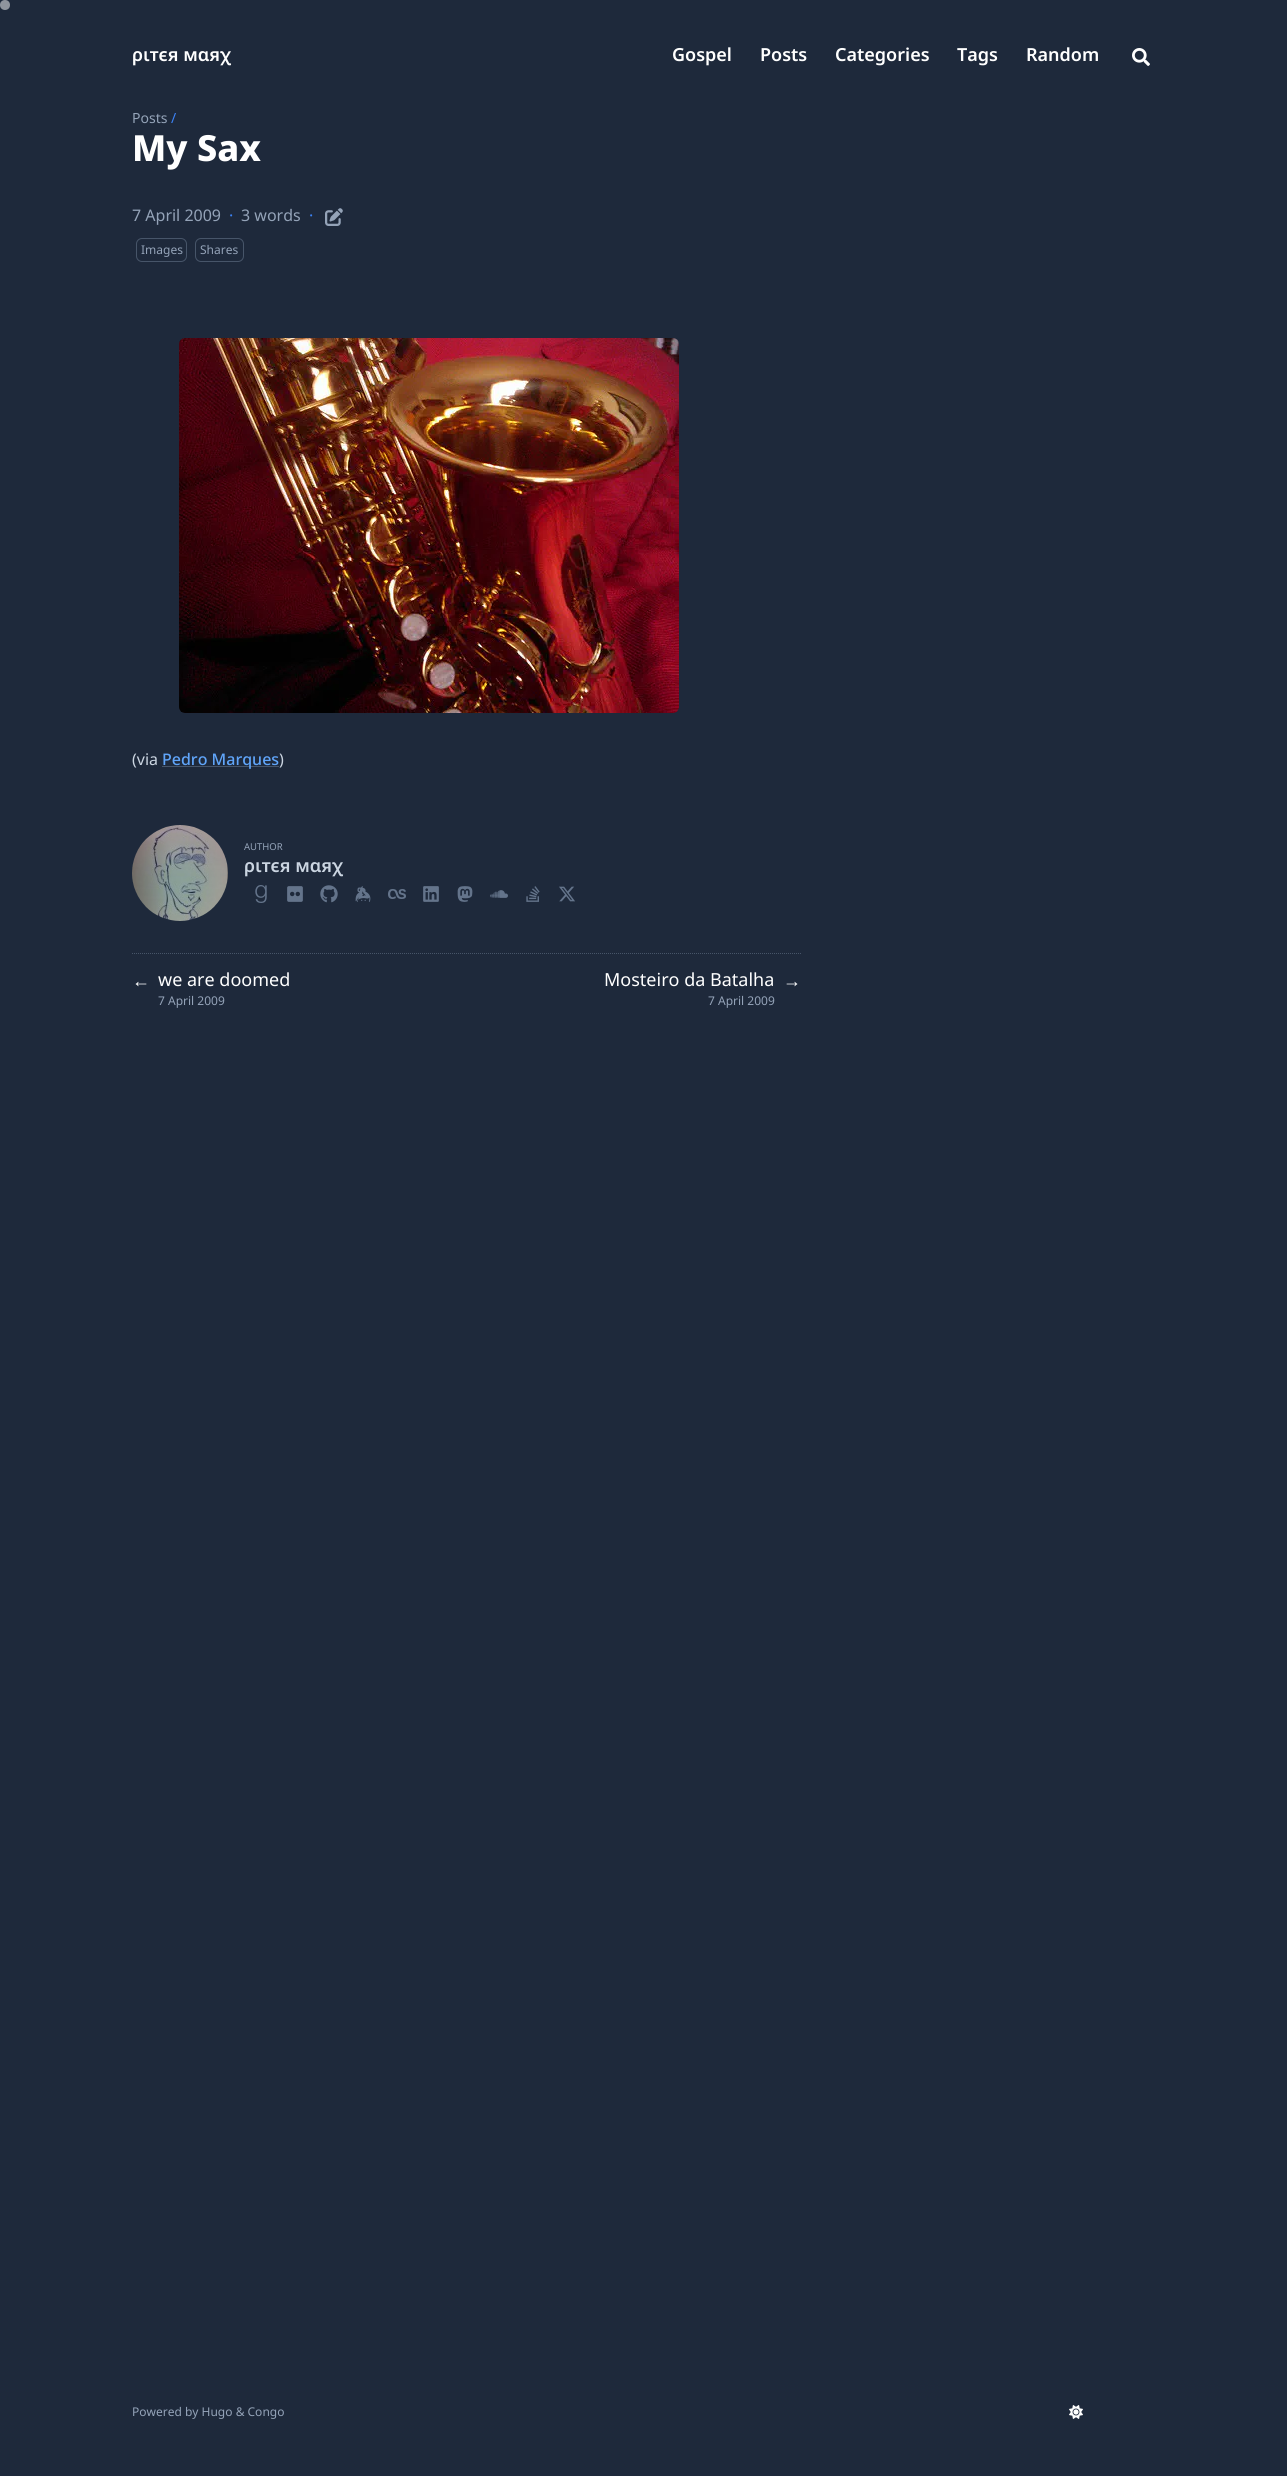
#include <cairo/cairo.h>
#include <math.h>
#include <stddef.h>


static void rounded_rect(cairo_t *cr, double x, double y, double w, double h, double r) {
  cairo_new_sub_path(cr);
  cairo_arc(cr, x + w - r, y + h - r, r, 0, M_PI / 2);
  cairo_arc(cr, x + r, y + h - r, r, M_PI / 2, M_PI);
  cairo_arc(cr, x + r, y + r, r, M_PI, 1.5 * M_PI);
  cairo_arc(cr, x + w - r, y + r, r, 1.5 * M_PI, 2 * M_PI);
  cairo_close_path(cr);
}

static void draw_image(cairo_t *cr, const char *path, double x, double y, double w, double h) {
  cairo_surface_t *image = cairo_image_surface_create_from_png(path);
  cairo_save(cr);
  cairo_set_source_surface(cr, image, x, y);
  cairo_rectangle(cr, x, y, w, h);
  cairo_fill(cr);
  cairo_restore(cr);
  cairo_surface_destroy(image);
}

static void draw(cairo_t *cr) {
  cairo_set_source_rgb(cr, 30 / 255.0, 41 / 255.0, 59 / 255.0);
  cairo_paint(cr);
  cairo_set_source_rgb(cr, 143 / 255.0, 148 / 255.0, 157 / 255.0);
  cairo_arc(cr, 5, 5, 5, 0, 2 * M_PI);
  cairo_fill(cr);
  draw_image(cr, "images/1.png", 1132, 48, 18, 18);
  draw_image(cr, "images/2.png", 325, 208, 18, 18);
  rounded_rect(cr, 136.5, 238.5, 50, 23, 5.5);
  cairo_set_source_rgb(cr, 71 / 255.0, 85 / 255.0, 105 / 255.0);
  cairo_set_line_width(cr, 1);
  cairo_stroke(cr);
  rounded_rect(cr, 195.5, 238.5, 48, 23, 5.5);
  cairo_stroke(cr);
  draw_image(cr, "images/3.png", 179, 338, 500, 375);
  cairo_rectangle(cr, 162, 766, 117, 1);
  cairo_fill(cr);
  draw_image(cr, "images/4.png", 132, 825, 96, 96);
  draw_image(cr, "images/5.png", 255, 885, 12, 18);
  draw_image(cr, "images/6.png", 287, 886, 16, 16);
  draw_image(cr, "images/7.png", 320, 885, 18, 18);
  draw_image(cr, "images/8.png", 355, 886, 16, 16);
  draw_image(cr, "images/9.png", 388, 889, 18, 10);
  draw_image(cr, "images/10.png", 423, 886, 16, 16);
  draw_image(cr, "images/11.png", 457, 886, 16, 16);
  draw_image(cr, "images/12.png", 490, 890, 18, 8);
  draw_image(cr, "images/13.png", 526, 886, 14, 16);
  draw_image(cr, "images/14.png", 559, 886, 16, 16);
  cairo_new_path(cr);
  cairo_move_to(cr, 132, 953.5);
  cairo_line_to(cr, 801, 953.5);
  cairo_set_dash(cr, (double[]){1, 1}, 2, 0);
  cairo_stroke(cr);
  draw_image(cr, "images/15.png", 1069, 2405, 14, 14);
  cairo_select_font_face(cr, "Noto Sans SemiBold", CAIRO_FONT_SLANT_NORMAL, CAIRO_FONT_WEIGHT_NORMAL);
  cairo_set_font_size(cr, 18);
  cairo_set_source_rgb(cr, 1, 1, 1);
  cairo_move_to(cr, 132, 61);
  cairo_show_text(cr, "ριтєя мαяχ");
  cairo_move_to(cr, 672, 61);
  cairo_show_text(cr, "Gospel");
  cairo_move_to(cr, 760, 61);
  cairo_show_text(cr, "Posts");
  cairo_move_to(cr, 835, 61);
  cairo_show_text(cr, "Categories");
  cairo_move_to(cr, 957, 61);
  cairo_show_text(cr, "Tags");
  cairo_move_to(cr, 1026, 61);
  cairo_show_text(cr, "Random");
  cairo_select_font_face(cr, "Noto Sans", CAIRO_FONT_SLANT_NORMAL, CAIRO_FONT_WEIGHT_NORMAL);
  cairo_set_font_size(cr, 14);
  cairo_set_source_rgb(cr, 148 / 255.0, 163 / 255.0, 184 / 255.0);
  cairo_move_to(cr, 132, 123);
  cairo_show_text(cr, "Posts");
  cairo_set_source_rgb(cr, 59 / 255.0, 130 / 255.0, 246 / 255.0);
  cairo_move_to(cr, 171, 123);
  cairo_show_text(cr, "/");
  cairo_select_font_face(cr, "Noto Sans ExtraBold", CAIRO_FONT_SLANT_NORMAL, CAIRO_FONT_WEIGHT_NORMAL);
  cairo_set_font_size(cr, 36);
  cairo_set_source_rgb(cr, 1, 1, 1);
  cairo_move_to(cr, 132, 161);
  cairo_show_text(cr, "My Sax");
  cairo_select_font_face(cr, "Noto Sans", CAIRO_FONT_SLANT_NORMAL, CAIRO_FONT_WEIGHT_NORMAL);
  cairo_set_font_size(cr, 16);
  cairo_set_source_rgb(cr, 148 / 255.0, 163 / 255.0, 184 / 255.0);
  cairo_move_to(cr, 132, 221);
  cairo_show_text(cr, "7 April 2009");
  cairo_set_source_rgb(cr, 59 / 255.0, 130 / 255.0, 246 / 255.0);
  cairo_move_to(cr, 229, 221);
  cairo_show_text(cr, "·");
  cairo_set_source_rgb(cr, 148 / 255.0, 163 / 255.0, 184 / 255.0);
  cairo_move_to(cr, 241, 221);
  cairo_show_text(cr, "3 words");
  cairo_set_source_rgb(cr, 59 / 255.0, 130 / 255.0, 246 / 255.0);
  cairo_move_to(cr, 309, 221);
  cairo_show_text(cr, "·");
  cairo_set_font_size(cr, 12);
  cairo_set_source_rgb(cr, 148 / 255.0, 163 / 255.0, 184 / 255.0);
  cairo_move_to(cr, 141, 254);
  cairo_show_text(cr, "Images");
  cairo_move_to(cr, 200, 254);
  cairo_show_text(cr, "Shares");
  cairo_set_font_size(cr, 16);
  cairo_set_source_rgb(cr, 203 / 255.0, 213 / 255.0, 225 / 255.0);
  cairo_move_to(cr, 132, 765);
  cairo_show_text(cr, "(via");
  cairo_select_font_face(cr, "Noto Sans Medium", CAIRO_FONT_SLANT_NORMAL, CAIRO_FONT_WEIGHT_NORMAL);
  cairo_set_source_rgb(cr, 96 / 255.0, 165 / 255.0, 250 / 255.0);
  cairo_move_to(cr, 162, 765);
  cairo_show_text(cr, "Pedro Marques");
  cairo_select_font_face(cr, "Noto Sans", CAIRO_FONT_SLANT_NORMAL, CAIRO_FONT_WEIGHT_NORMAL);
  cairo_set_source_rgb(cr, 203 / 255.0, 213 / 255.0, 225 / 255.0);
  cairo_move_to(cr, 279, 765);
  cairo_show_text(cr, ")");
  cairo_set_font_size(cr, 9.5);
  cairo_set_source_rgb(cr, 148 / 255.0, 163 / 255.0, 184 / 255.0);
  cairo_move_to(cr, 244, 850);
  cairo_show_text(cr, "AUTHOR");
  cairo_select_font_face(cr, "Noto Sans SemiBold", CAIRO_FONT_SLANT_NORMAL, CAIRO_FONT_WEIGHT_NORMAL);
  cairo_set_font_size(cr, 18);
  cairo_set_source_rgb(cr, 203 / 255.0, 213 / 255.0, 225 / 255.0);
  cairo_move_to(cr, 244, 872);
  cairo_show_text(cr, "ριтєя мαяχ");
  cairo_select_font_face(cr, "Liberation Sans", CAIRO_FONT_SLANT_NORMAL, CAIRO_FONT_WEIGHT_NORMAL);
  cairo_set_source_rgb(cr, 1, 1, 1);
  cairo_move_to(cr, 132, 987);
  cairo_show_text(cr, "←");
  cairo_select_font_face(cr, "Noto Sans", CAIRO_FONT_SLANT_NORMAL, CAIRO_FONT_WEIGHT_NORMAL);
  cairo_move_to(cr, 158, 986);
  cairo_show_text(cr, "we are doomed");
  cairo_set_font_size(cr, 12);
  cairo_set_source_rgb(cr, 148 / 255.0, 163 / 255.0, 184 / 255.0);
  cairo_move_to(cr, 158, 1005);
  cairo_show_text(cr, "7 April 2009");
  cairo_set_font_size(cr, 18);
  cairo_set_source_rgb(cr, 1, 1, 1);
  cairo_move_to(cr, 604, 986);
  cairo_show_text(cr, "Mosteiro da Batalha");
  cairo_set_font_size(cr, 12);
  cairo_set_source_rgb(cr, 148 / 255.0, 163 / 255.0, 184 / 255.0);
  cairo_move_to(cr, 708, 1005);
  cairo_show_text(cr, "7 April 2009");
  cairo_select_font_face(cr, "Liberation Sans", CAIRO_FONT_SLANT_NORMAL, CAIRO_FONT_WEIGHT_NORMAL);
  cairo_set_font_size(cr, 18);
  cairo_set_source_rgb(cr, 1, 1, 1);
  cairo_move_to(cr, 783, 987);
  cairo_show_text(cr, "→");
  cairo_select_font_face(cr, "Noto Sans", CAIRO_FONT_SLANT_NORMAL, CAIRO_FONT_WEIGHT_NORMAL);
  cairo_set_font_size(cr, 12);
  cairo_set_source_rgb(cr, 148 / 255.0, 163 / 255.0, 184 / 255.0);
  cairo_move_to(cr, 132, 2416);
  cairo_show_text(cr, "Powered by Hugo & Congo");
}

int main(void) {
  cairo_surface_t *surface = cairo_image_surface_create(CAIRO_FORMAT_RGB24, 1287, 2476);
  cairo_t *cr = cairo_create(surface);
  cairo_font_options_t *options = cairo_font_options_create();
  cairo_font_options_set_hint_metrics(options, CAIRO_HINT_METRICS_OFF);
  cairo_font_options_set_hint_style(options, CAIRO_HINT_STYLE_NONE);
  cairo_set_font_options(cr, options);
  cairo_set_miter_limit(cr, 4);
  draw(cr);
  cairo_surface_write_to_png(surface, "out.png");
  cairo_font_options_destroy(options);
  cairo_destroy(cr);
  cairo_surface_destroy(surface);
  return 0;
}
